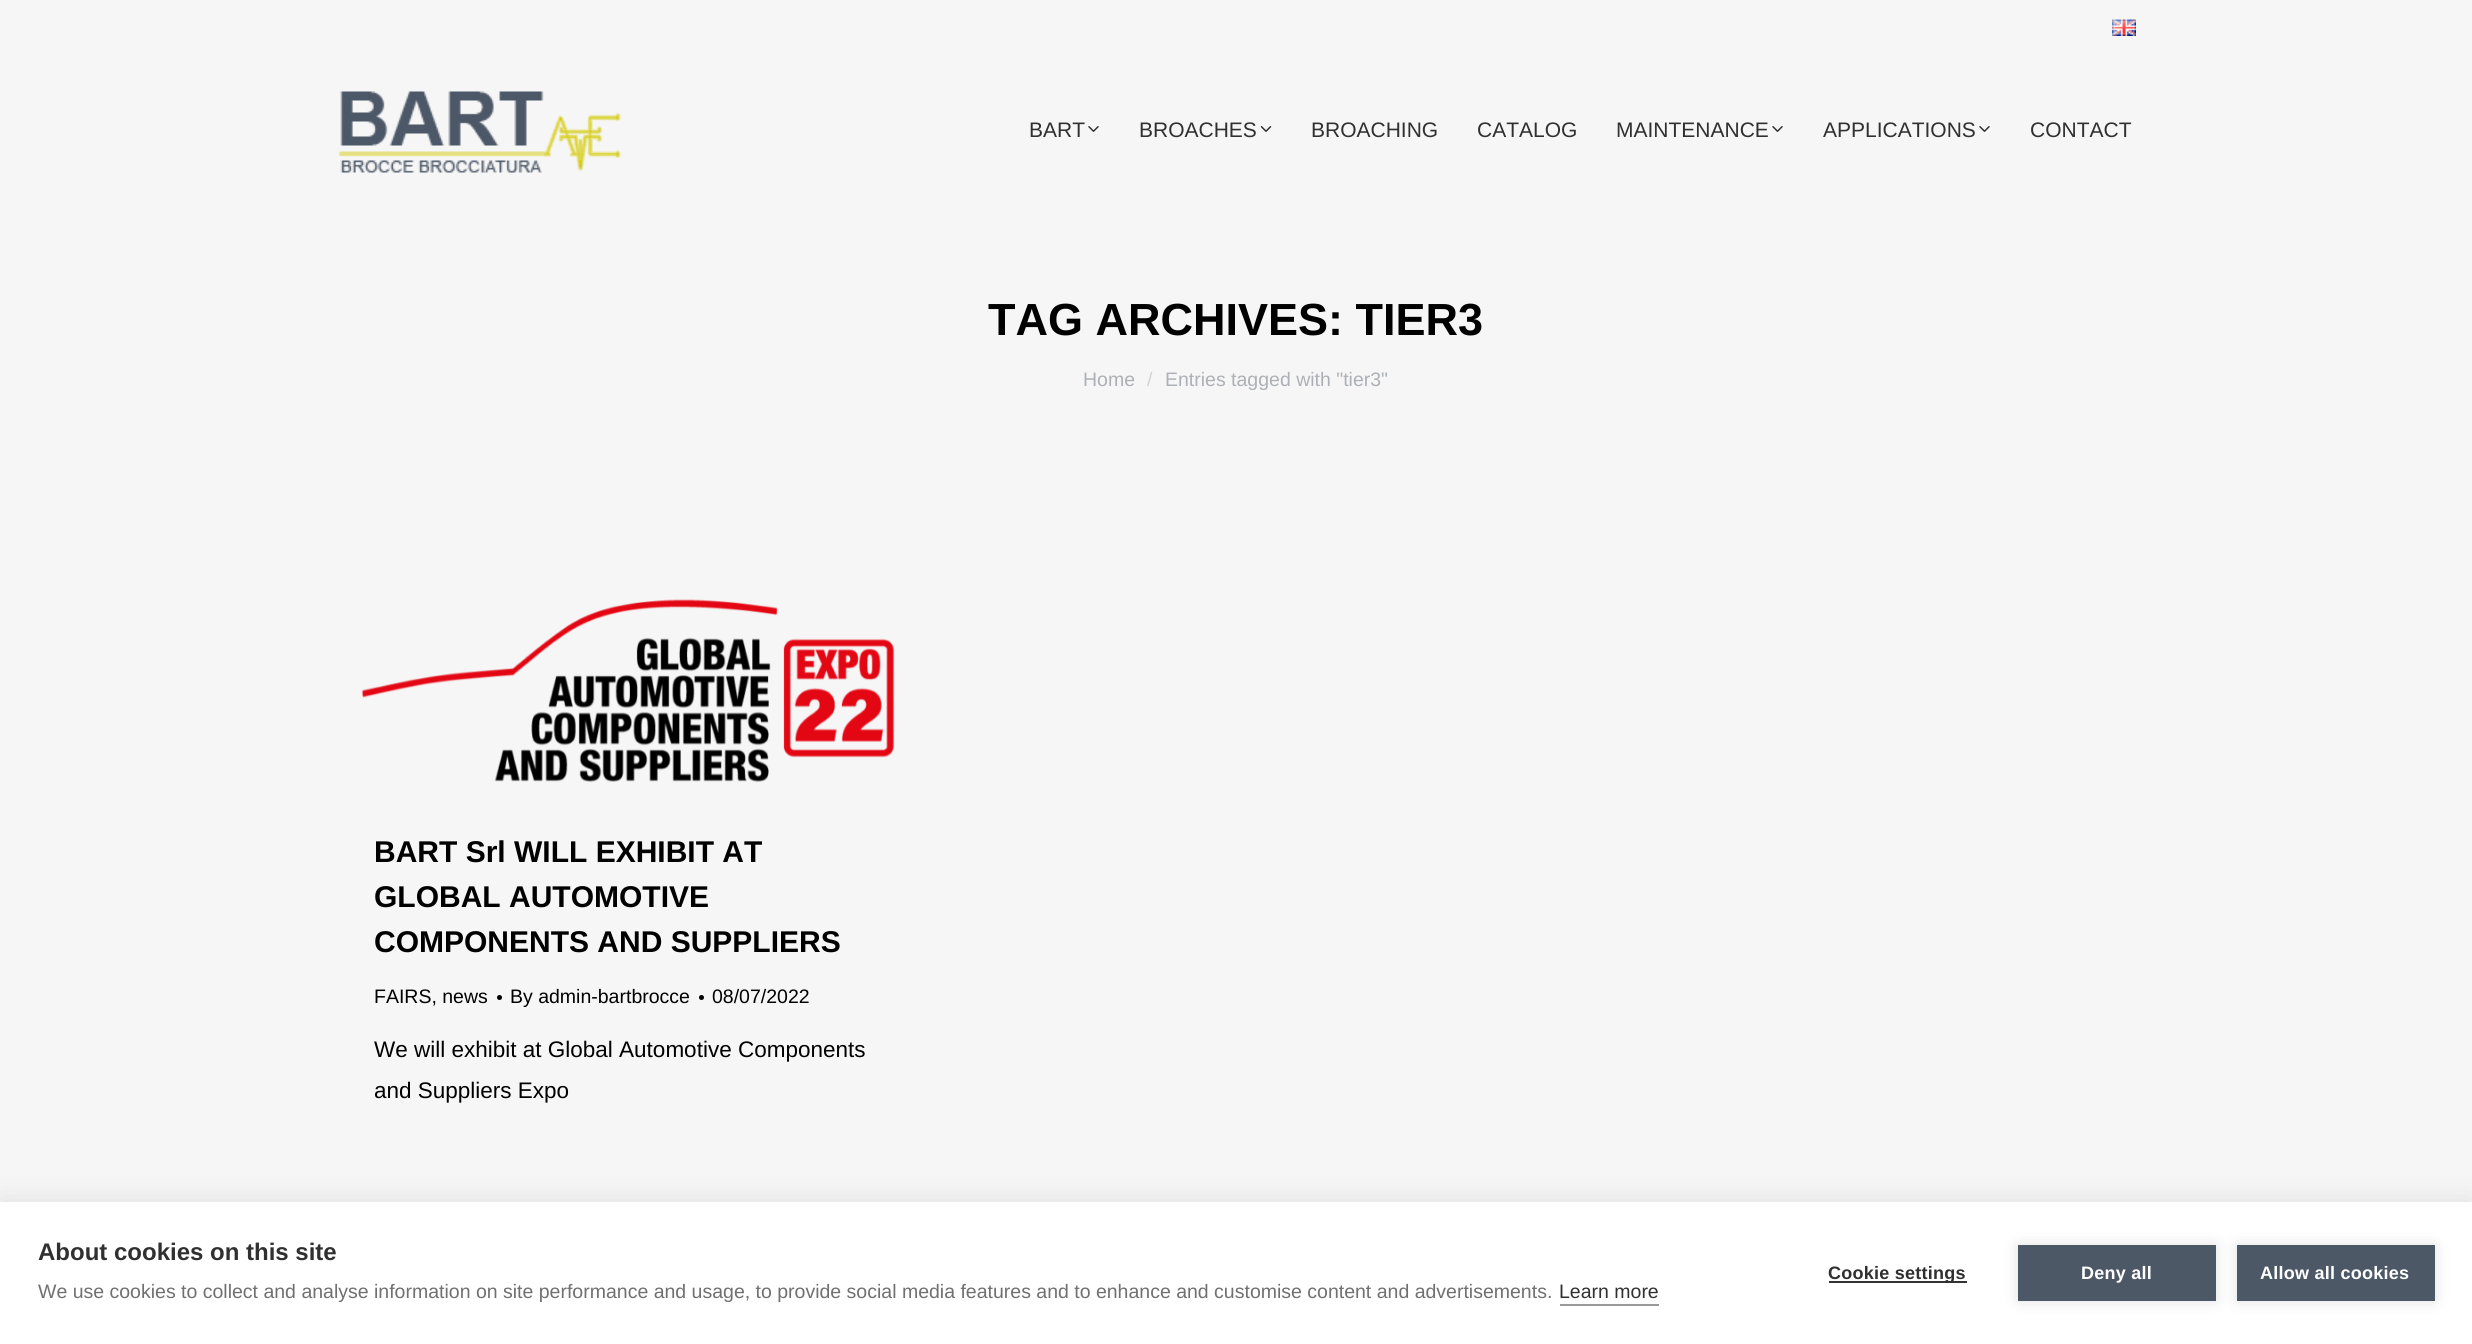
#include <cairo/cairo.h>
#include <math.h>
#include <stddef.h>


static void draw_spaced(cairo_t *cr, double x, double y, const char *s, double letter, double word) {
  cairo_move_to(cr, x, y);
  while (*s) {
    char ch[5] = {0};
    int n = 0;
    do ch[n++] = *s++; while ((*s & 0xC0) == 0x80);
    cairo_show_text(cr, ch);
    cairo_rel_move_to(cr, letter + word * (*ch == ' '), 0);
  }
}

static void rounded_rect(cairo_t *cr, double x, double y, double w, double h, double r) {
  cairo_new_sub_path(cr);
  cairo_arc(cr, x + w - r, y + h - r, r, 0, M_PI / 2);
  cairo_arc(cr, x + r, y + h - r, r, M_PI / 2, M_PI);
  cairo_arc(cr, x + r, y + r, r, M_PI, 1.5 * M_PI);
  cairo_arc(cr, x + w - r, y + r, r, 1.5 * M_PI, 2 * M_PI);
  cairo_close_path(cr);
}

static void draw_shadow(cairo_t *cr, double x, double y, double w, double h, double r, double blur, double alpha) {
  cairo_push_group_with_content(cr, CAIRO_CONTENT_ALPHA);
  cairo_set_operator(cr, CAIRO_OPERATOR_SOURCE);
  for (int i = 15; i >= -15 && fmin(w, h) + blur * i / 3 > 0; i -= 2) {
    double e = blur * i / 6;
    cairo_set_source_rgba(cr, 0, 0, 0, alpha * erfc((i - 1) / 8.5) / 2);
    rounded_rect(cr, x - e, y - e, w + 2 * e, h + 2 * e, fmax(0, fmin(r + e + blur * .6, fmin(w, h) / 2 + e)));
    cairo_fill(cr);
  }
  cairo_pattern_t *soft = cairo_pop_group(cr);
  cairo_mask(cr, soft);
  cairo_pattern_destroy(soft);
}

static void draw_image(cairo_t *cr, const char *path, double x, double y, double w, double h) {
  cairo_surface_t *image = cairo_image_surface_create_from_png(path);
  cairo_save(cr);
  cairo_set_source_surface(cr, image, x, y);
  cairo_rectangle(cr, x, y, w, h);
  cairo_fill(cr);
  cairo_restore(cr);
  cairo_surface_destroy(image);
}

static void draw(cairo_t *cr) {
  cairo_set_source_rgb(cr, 246 / 255.0, 246 / 255.0, 246 / 255.0);
  cairo_paint(cr);
  draw_image(cr, "images/1.png", 2112, 19, 24, 17);
  draw_image(cr, "images/2.png", 338, 91, 284, 82);
  draw_image(cr, "images/3.png", 1088, 126, 11, 6);
  draw_image(cr, "images/4.png", 1260, 126, 12, 6);
  draw_image(cr, "images/3.png", 1772, 126, 11, 6);
  draw_image(cr, "images/3.png", 1979, 126, 11, 6);
  draw_image(cr, "images/5.png", 361, 599, 534, 183);
  cairo_set_source_rgb(cr, 0, 0, 0);
  cairo_arc(cr, 499.5, 997.5, 2.5, 0, 2 * M_PI);
  cairo_fill(cr);
  cairo_arc(cr, 701.5, 997.5, 2.5, 0, 2 * M_PI);
  cairo_fill(cr);
  cairo_set_source_rgb(cr, 0, 0, 0);
  draw_shadow(cr, 0, 1202, 2472, 142, 0, 15, 0.1);
  cairo_set_source_rgb(cr, 1, 1, 1);
  cairo_rectangle(cr, 0, 1202, 2472, 142);
  cairo_fill(cr);
  cairo_set_source_rgb(cr, 153 / 255.0, 153 / 255.0, 153 / 255.0);
  cairo_rectangle(cr, 1560, 1304, 99, 2);
  cairo_fill(cr);
  cairo_set_source_rgb(cr, 51 / 255.0, 51 / 255.0, 51 / 255.0);
  cairo_rectangle(cr, 1829, 1281, 138, 2);
  cairo_fill(cr);
  cairo_set_source_rgb(cr, 0, 0, 0);
  draw_shadow(cr, 2018, 1245, 198, 56, 0, 7.5, 0.12);
  cairo_set_source_rgb(cr, 77 / 255.0, 88 / 255.0, 103 / 255.0);
  cairo_rectangle(cr, 2018, 1245, 198, 56);
  cairo_fill(cr);
  cairo_set_source_rgb(cr, 0, 0, 0);
  draw_shadow(cr, 2237, 1245, 198, 56, 0, 7.5, 0.12);
  cairo_set_source_rgb(cr, 77 / 255.0, 88 / 255.0, 103 / 255.0);
  cairo_rectangle(cr, 2237, 1245, 198, 56);
  cairo_fill(cr);
  cairo_select_font_face(cr, "Liberation Sans", CAIRO_FONT_SLANT_NORMAL, CAIRO_FONT_WEIGHT_NORMAL);
  cairo_set_font_size(cr, 21);
  cairo_set_source_rgb(cr, 48 / 255.0, 48 / 255.0, 48 / 255.0);
  cairo_move_to(cr, 1029, 137);
  cairo_show_text(cr, "BART");
  cairo_move_to(cr, 1139, 137);
  cairo_show_text(cr, "BROACHES");
  cairo_move_to(cr, 1311, 137);
  cairo_show_text(cr, "BROACHING");
  cairo_move_to(cr, 1477, 137);
  cairo_show_text(cr, "CATALOG");
  cairo_move_to(cr, 1616, 137);
  cairo_show_text(cr, "MAINTENANCE");
  cairo_move_to(cr, 1823, 137);
  cairo_show_text(cr, "APPLICATIONS");
  cairo_move_to(cr, 2030, 137);
  cairo_show_text(cr, "CONTACT");
  cairo_select_font_face(cr, "Liberation Sans", CAIRO_FONT_SLANT_NORMAL, CAIRO_FONT_WEIGHT_BOLD);
  cairo_set_font_size(cr, 45);
  cairo_set_source_rgb(cr, 0, 0, 0);
  cairo_move_to(cr, 988, 335);
  cairo_show_text(cr, "TAG ARCHIVES: TIER3");
  cairo_select_font_face(cr, "Liberation Sans", CAIRO_FONT_SLANT_NORMAL, CAIRO_FONT_WEIGHT_NORMAL);
  cairo_set_font_size(cr, 19.5);
  cairo_set_source_rgb(cr, 173 / 255.0, 176 / 255.0, 182 / 255.0);
  cairo_move_to(cr, 1083, 386);
  cairo_show_text(cr, "Home");
  cairo_set_source_rgb(cr, 210 / 255.0, 211 / 255.0, 214 / 255.0);
  cairo_move_to(cr, 1147, 386);
  cairo_show_text(cr, "/");
  cairo_set_source_rgb(cr, 173 / 255.0, 176 / 255.0, 182 / 255.0);
  cairo_move_to(cr, 1165, 386);
  cairo_show_text(cr, "Entries tagged with \"tier3\"");
  cairo_select_font_face(cr, "Liberation Sans", CAIRO_FONT_SLANT_NORMAL, CAIRO_FONT_WEIGHT_BOLD);
  cairo_set_font_size(cr, 30);
  cairo_set_source_rgb(cr, 0, 0, 0);
  cairo_move_to(cr, 374, 862);
  cairo_show_text(cr, "BART Srl WILL EXHIBIT AT");
  cairo_move_to(cr, 374, 907);
  cairo_show_text(cr, "GLOBAL AUTOMOTIVE");
  cairo_move_to(cr, 374, 952);
  cairo_show_text(cr, "COMPONENTS AND SUPPLIERS");
  cairo_select_font_face(cr, "Liberation Sans", CAIRO_FONT_SLANT_NORMAL, CAIRO_FONT_WEIGHT_NORMAL);
  cairo_set_font_size(cr, 19.5);
  cairo_move_to(cr, 374, 1003);
  cairo_show_text(cr, "FAIRS, news");
  cairo_move_to(cr, 510, 1003);
  cairo_show_text(cr, "By admin-bartbrocce");
  cairo_move_to(cr, 712, 1003);
  cairo_show_text(cr, "08/07/2022");
  cairo_set_font_size(cr, 22.5);
  cairo_move_to(cr, 374, 1057);
  cairo_show_text(cr, "We will exhibit at Global Automotive Components");
  cairo_move_to(cr, 374, 1098);
  cairo_show_text(cr, "and Suppliers Expo");
  cairo_select_font_face(cr, "Liberation Sans", CAIRO_FONT_SLANT_NORMAL, CAIRO_FONT_WEIGHT_BOLD);
  cairo_set_font_size(cr, 24);
  cairo_set_source_rgb(cr, 48 / 255.0, 48 / 255.0, 48 / 255.0);
  cairo_move_to(cr, 38, 1260);
  cairo_show_text(cr, "About cookies on this site");
  cairo_select_font_face(cr, "Liberation Sans", CAIRO_FONT_SLANT_NORMAL, CAIRO_FONT_WEIGHT_NORMAL);
  cairo_set_font_size(cr, 19.5);
  cairo_set_source_rgb(cr, 112 / 255.0, 112 / 255.0, 112 / 255.0);
  cairo_move_to(cr, 38, 1298);
  cairo_show_text(cr, "We use cookies to collect and analyse information on site performance and usage, to provide social media features and to enhance and customise content and advertisements.");
  cairo_set_source_rgb(cr, 48 / 255.0, 48 / 255.0, 48 / 255.0);
  cairo_move_to(cr, 1559, 1298);
  cairo_show_text(cr, "Learn more");
  cairo_select_font_face(cr, "Liberation Sans", CAIRO_FONT_SLANT_NORMAL, CAIRO_FONT_WEIGHT_BOLD);
  cairo_set_font_size(cr, 18);
  draw_spaced(cr, 1828, 1279, "Cookie settings", 0.25, 0);
  cairo_set_source_rgb(cr, 1, 1, 1);
  draw_spaced(cr, 2081, 1279, "Deny all", 0.25, 0);
  draw_spaced(cr, 2260, 1279, "Allow all cookies", 0.25, 0);
}

int main(void) {
  cairo_surface_t *surface = cairo_image_surface_create(CAIRO_FORMAT_RGB24, 2472, 1344);
  cairo_t *cr = cairo_create(surface);
  cairo_font_options_t *options = cairo_font_options_create();
  cairo_font_options_set_hint_metrics(options, CAIRO_HINT_METRICS_OFF);
  cairo_font_options_set_hint_style(options, CAIRO_HINT_STYLE_NONE);
  cairo_set_font_options(cr, options);
  cairo_set_miter_limit(cr, 4);
  draw(cr);
  cairo_surface_write_to_png(surface, "out.png");
  cairo_font_options_destroy(options);
  cairo_destroy(cr);
  cairo_surface_destroy(surface);
  return 0;
}
